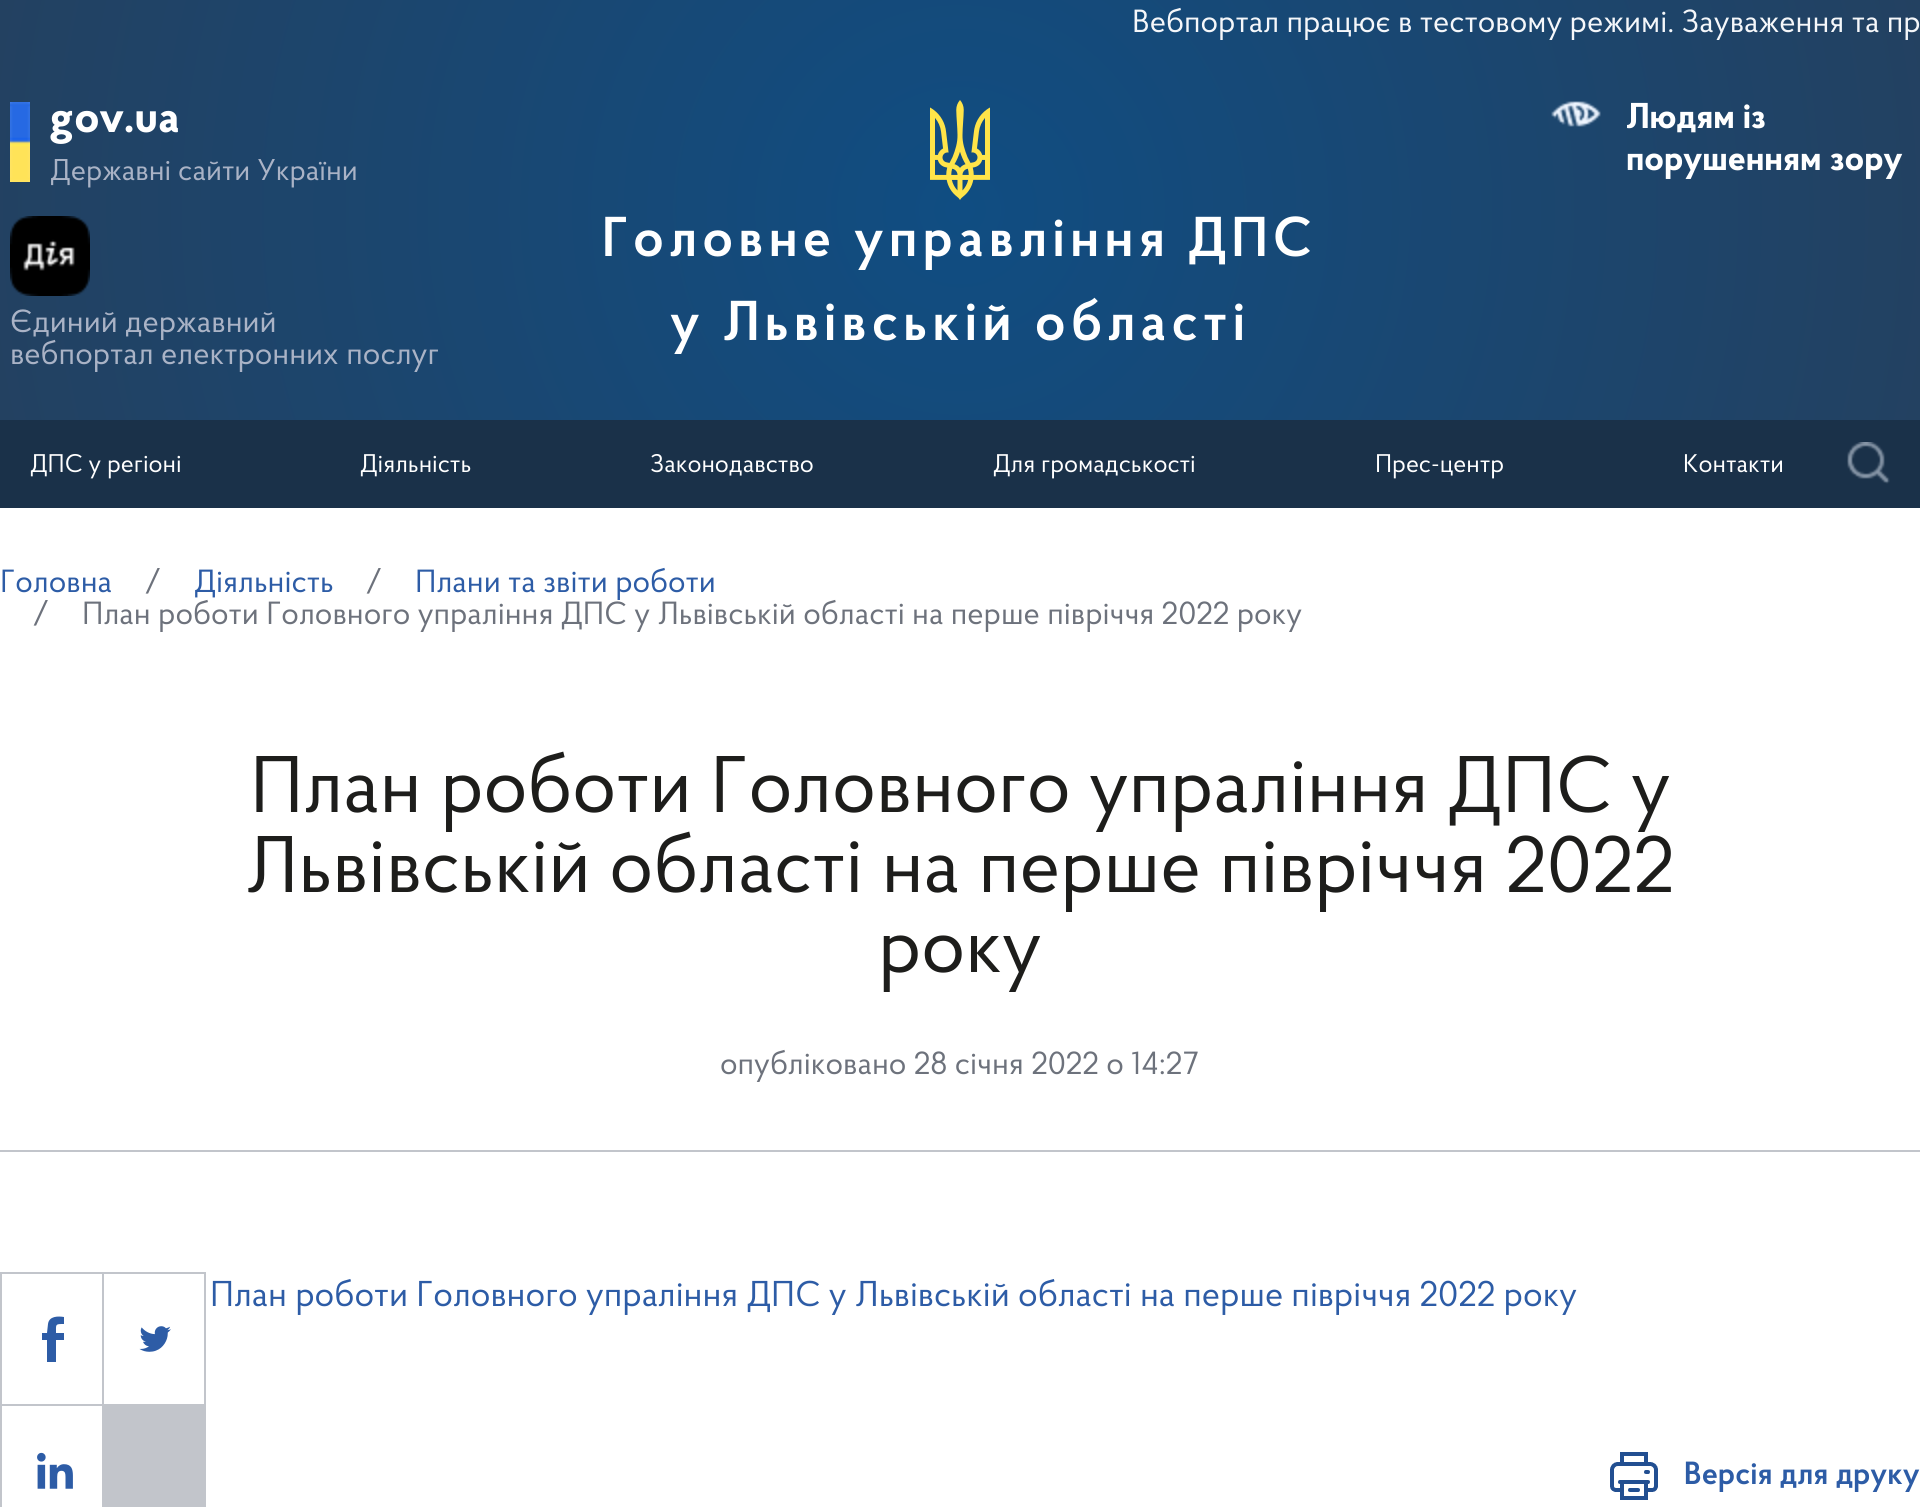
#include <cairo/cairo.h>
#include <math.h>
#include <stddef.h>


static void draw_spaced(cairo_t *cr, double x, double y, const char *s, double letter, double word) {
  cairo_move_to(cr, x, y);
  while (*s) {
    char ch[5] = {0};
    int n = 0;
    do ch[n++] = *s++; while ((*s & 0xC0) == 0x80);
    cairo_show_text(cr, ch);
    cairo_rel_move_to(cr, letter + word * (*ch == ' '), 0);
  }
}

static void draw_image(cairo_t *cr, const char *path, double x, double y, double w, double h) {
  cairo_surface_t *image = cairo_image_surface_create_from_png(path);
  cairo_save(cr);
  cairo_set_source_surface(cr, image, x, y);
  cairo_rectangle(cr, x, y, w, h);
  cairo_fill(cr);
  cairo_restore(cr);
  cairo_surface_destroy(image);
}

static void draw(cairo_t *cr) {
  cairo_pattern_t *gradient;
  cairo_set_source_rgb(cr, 1, 1, 1);
  cairo_paint(cr);
  gradient = cairo_pattern_create_radial(960, 210, 0, 960, 210, 983);
  cairo_pattern_add_color_stop_rgba(gradient, 0, 16 / 255.0, 77 / 255.0, 130 / 255.0, 1);
  cairo_pattern_add_color_stop_rgba(gradient, 1, 35 / 255.0, 65 / 255.0, 97 / 255.0, 1);
  cairo_set_source(cr, gradient);
  cairo_pattern_destroy(gradient);
  cairo_rectangle(cr, 0, 0, 1920, 420);
  cairo_fill(cr);
  draw_image(cr, "images/1.png", 10, 102, 20, 80);
  draw_image(cr, "images/2.png", 1551, 101, 50, 26);
  draw_image(cr, "images/3.png", 930, 100, 60, 100);
  draw_image(cr, "images/4.png", 10, 216, 80, 80);
  cairo_set_source_rgb(cr, 26 / 255.0, 49 / 255.0, 73 / 255.0);
  cairo_rectangle(cr, 0, 420, 1920, 88);
  cairo_fill(cr);
  draw_image(cr, "images/5.png", 1847, 442, 43, 42);
  cairo_set_source_rgb(cr, 194 / 255.0, 197 / 255.0, 203 / 255.0);
  cairo_rectangle(cr, 0, 1150, 1920, 2);
  cairo_fill(cr);
  cairo_rectangle(cr, 0, 1272, 206, 235);
  cairo_fill(cr);
  cairo_set_source_rgb(cr, 1, 1, 1);
  cairo_rectangle(cr, 2, 1274, 100, 130);
  cairo_fill(cr);
  cairo_set_source_rgb(cr, 45 / 255.0, 92 / 255.0, 166 / 255.0);
  cairo_new_path(cr);
  cairo_move_to(cr, 47, 1362);
  cairo_line_to(cr, 47, 1340);
  cairo_line_to(cr, 42, 1340);
  cairo_line_to(cr, 42, 1333);
  cairo_line_to(cr, 47, 1333);
  cairo_line_to(cr, 48, 1324);
  cairo_curve_to(cr, 49, 1316, 58, 1316, 64, 1317);
  cairo_line_to(cr, 64, 1324);
  cairo_curve_to(cr, 55, 1324, 56, 1324, 56, 1333);
  cairo_line_to(cr, 64, 1333);
  cairo_line_to(cr, 64, 1340);
  cairo_line_to(cr, 56, 1340);
  cairo_line_to(cr, 56, 1362);
  cairo_close_path(cr);
  cairo_fill(cr);
  cairo_set_source_rgb(cr, 1, 1, 1);
  cairo_rectangle(cr, 104, 1274, 100, 130);
  cairo_fill(cr);
  draw_image(cr, "images/6.png", 139, 1326, 32, 26);
  cairo_rectangle(cr, 2, 1406, 100, 101);
  cairo_fill(cr);
  draw_image(cr, "images/7.png", 37, 1452, 36, 37);
  draw_image(cr, "images/8.png", 1610, 1452, 48, 48);
  cairo_select_font_face(cr, "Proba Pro", CAIRO_FONT_SLANT_NORMAL, CAIRO_FONT_WEIGHT_NORMAL);
  cairo_set_font_size(cr, 32);
  cairo_set_source_rgb(cr, 245 / 255.0, 247 / 255.0, 250 / 255.0);
  cairo_move_to(cr, 1132, 32);
  cairo_show_text(cr, "Вебпортал працює в тестовому режимі. Зауваження та пр");
  cairo_select_font_face(cr, "Proba Pro", CAIRO_FONT_SLANT_NORMAL, CAIRO_FONT_WEIGHT_BOLD);
  cairo_set_font_size(cr, 46);
  cairo_set_source_rgb(cr, 1, 1, 1);
  cairo_move_to(cr, 50, 132);
  cairo_show_text(cr, "gov.ua");
  cairo_select_font_face(cr, "Proba Pro", CAIRO_FONT_SLANT_NORMAL, CAIRO_FONT_WEIGHT_NORMAL);
  cairo_set_font_size(cr, 30);
  cairo_set_source_rgb(cr, 170 / 255.0, 179 / 255.0, 198 / 255.0);
  cairo_move_to(cr, 50, 180);
  cairo_show_text(cr, "Державні сайти України");
  cairo_select_font_face(cr, "Proba Pro", CAIRO_FONT_SLANT_NORMAL, CAIRO_FONT_WEIGHT_BOLD);
  cairo_set_font_size(cr, 35.85);
  cairo_set_source_rgb(cr, 1, 1, 1);
  cairo_move_to(cr, 1626, 128);
  cairo_show_text(cr, "Людям із");
  cairo_move_to(cr, 1626, 170);
  cairo_show_text(cr, "порушенням зору");
  cairo_select_font_face(cr, "Proba Pro SemiBold", CAIRO_FONT_SLANT_NORMAL, CAIRO_FONT_WEIGHT_NORMAL);
  cairo_set_font_size(cr, 56);
  draw_spaced(cr, 602, 256, "Головне управління ДПС", 5.1, 0);
  draw_spaced(cr, 670, 340, "у Львівській області", 5.1, 0);
  cairo_select_font_face(cr, "Proba Pro", CAIRO_FONT_SLANT_NORMAL, CAIRO_FONT_WEIGHT_NORMAL);
  cairo_set_font_size(cr, 32);
  cairo_set_source_rgb(cr, 170 / 255.0, 179 / 255.0, 198 / 255.0);
  cairo_move_to(cr, 10, 332);
  cairo_show_text(cr, "Єдиний державний");
  cairo_move_to(cr, 10, 364);
  cairo_show_text(cr, "вебпортал електронних послуг");
  cairo_set_font_size(cr, 25.5);
  cairo_set_source_rgb(cr, 1, 1, 1);
  cairo_move_to(cr, 30, 472);
  cairo_show_text(cr, "ДПС у регіоні");
  cairo_move_to(cr, 360, 472);
  cairo_show_text(cr, "Діяльність");
  cairo_move_to(cr, 650, 472);
  cairo_show_text(cr, "Законодавство");
  cairo_move_to(cr, 993, 472);
  cairo_show_text(cr, "Для громадськості");
  cairo_move_to(cr, 1375, 472);
  cairo_show_text(cr, "Прес-центр");
  cairo_move_to(cr, 1683, 472);
  cairo_show_text(cr, "Контакти");
  cairo_set_font_size(cr, 32);
  cairo_set_source_rgb(cr, 45 / 255.0, 92 / 255.0, 166 / 255.0);
  cairo_move_to(cr, 0, 592);
  cairo_show_text(cr, "Головна");
  cairo_set_source_rgb(cr, 109 / 255.0, 114 / 255.0, 124 / 255.0);
  cairo_move_to(cr, 144, 592);
  cairo_show_text(cr, "/");
  cairo_set_source_rgb(cr, 45 / 255.0, 92 / 255.0, 166 / 255.0);
  cairo_move_to(cr, 194, 592);
  cairo_show_text(cr, "Діяльність");
  cairo_set_source_rgb(cr, 109 / 255.0, 114 / 255.0, 124 / 255.0);
  cairo_move_to(cr, 365, 592);
  cairo_show_text(cr, "/");
  cairo_set_source_rgb(cr, 45 / 255.0, 92 / 255.0, 166 / 255.0);
  cairo_move_to(cr, 415, 592);
  cairo_show_text(cr, "Плани та звіти роботи");
  cairo_set_source_rgb(cr, 109 / 255.0, 114 / 255.0, 124 / 255.0);
  cairo_move_to(cr, 32, 624);
  cairo_show_text(cr, "/");
  cairo_move_to(cr, 82, 624);
  cairo_show_text(cr, "План роботи Головного упраління ДПС у Львівській області на перше півріччя 2022 року");
  cairo_set_font_size(cr, 80);
  cairo_set_source_rgb(cr, 29 / 255.0, 29 / 255.0, 27 / 255.0);
  cairo_move_to(cr, 250, 812);
  cairo_show_text(cr, "План роботи Головного упраління ДПС у");
  cairo_move_to(cr, 245, 892);
  cairo_show_text(cr, "Львівській області на перше півріччя 2022");
  cairo_move_to(cr, 878, 972);
  cairo_show_text(cr, "року");
  cairo_set_font_size(cr, 32);
  cairo_set_source_rgb(cr, 109 / 255.0, 114 / 255.0, 124 / 255.0);
  cairo_move_to(cr, 720, 1074);
  cairo_show_text(cr, "опубліковано 28 січня 2022 о 14:27");
  cairo_set_font_size(cr, 35.85);
  cairo_set_source_rgb(cr, 45 / 255.0, 92 / 255.0, 166 / 255.0);
  cairo_move_to(cr, 210, 1306);
  cairo_show_text(cr, "План роботи Головного упраління ДПС у Львівській області на перше півріччя 2022 року");
  cairo_select_font_face(cr, "Proba Pro SemiBold", CAIRO_FONT_SLANT_NORMAL, CAIRO_FONT_WEIGHT_NORMAL);
  cairo_set_font_size(cr, 32);
  cairo_move_to(cr, 1684, 1484);
  cairo_show_text(cr, "Версія для друку");
}

int main(void) {
  cairo_surface_t *surface = cairo_image_surface_create(CAIRO_FORMAT_RGB24, 1920, 1507);
  cairo_t *cr = cairo_create(surface);
  cairo_font_options_t *options = cairo_font_options_create();
  cairo_font_options_set_hint_metrics(options, CAIRO_HINT_METRICS_OFF);
  cairo_font_options_set_hint_style(options, CAIRO_HINT_STYLE_NONE);
  cairo_set_font_options(cr, options);
  cairo_set_miter_limit(cr, 4);
  draw(cr);
  cairo_surface_write_to_png(surface, "out.png");
  cairo_font_options_destroy(options);
  cairo_destroy(cr);
  cairo_surface_destroy(surface);
  return 0;
}
